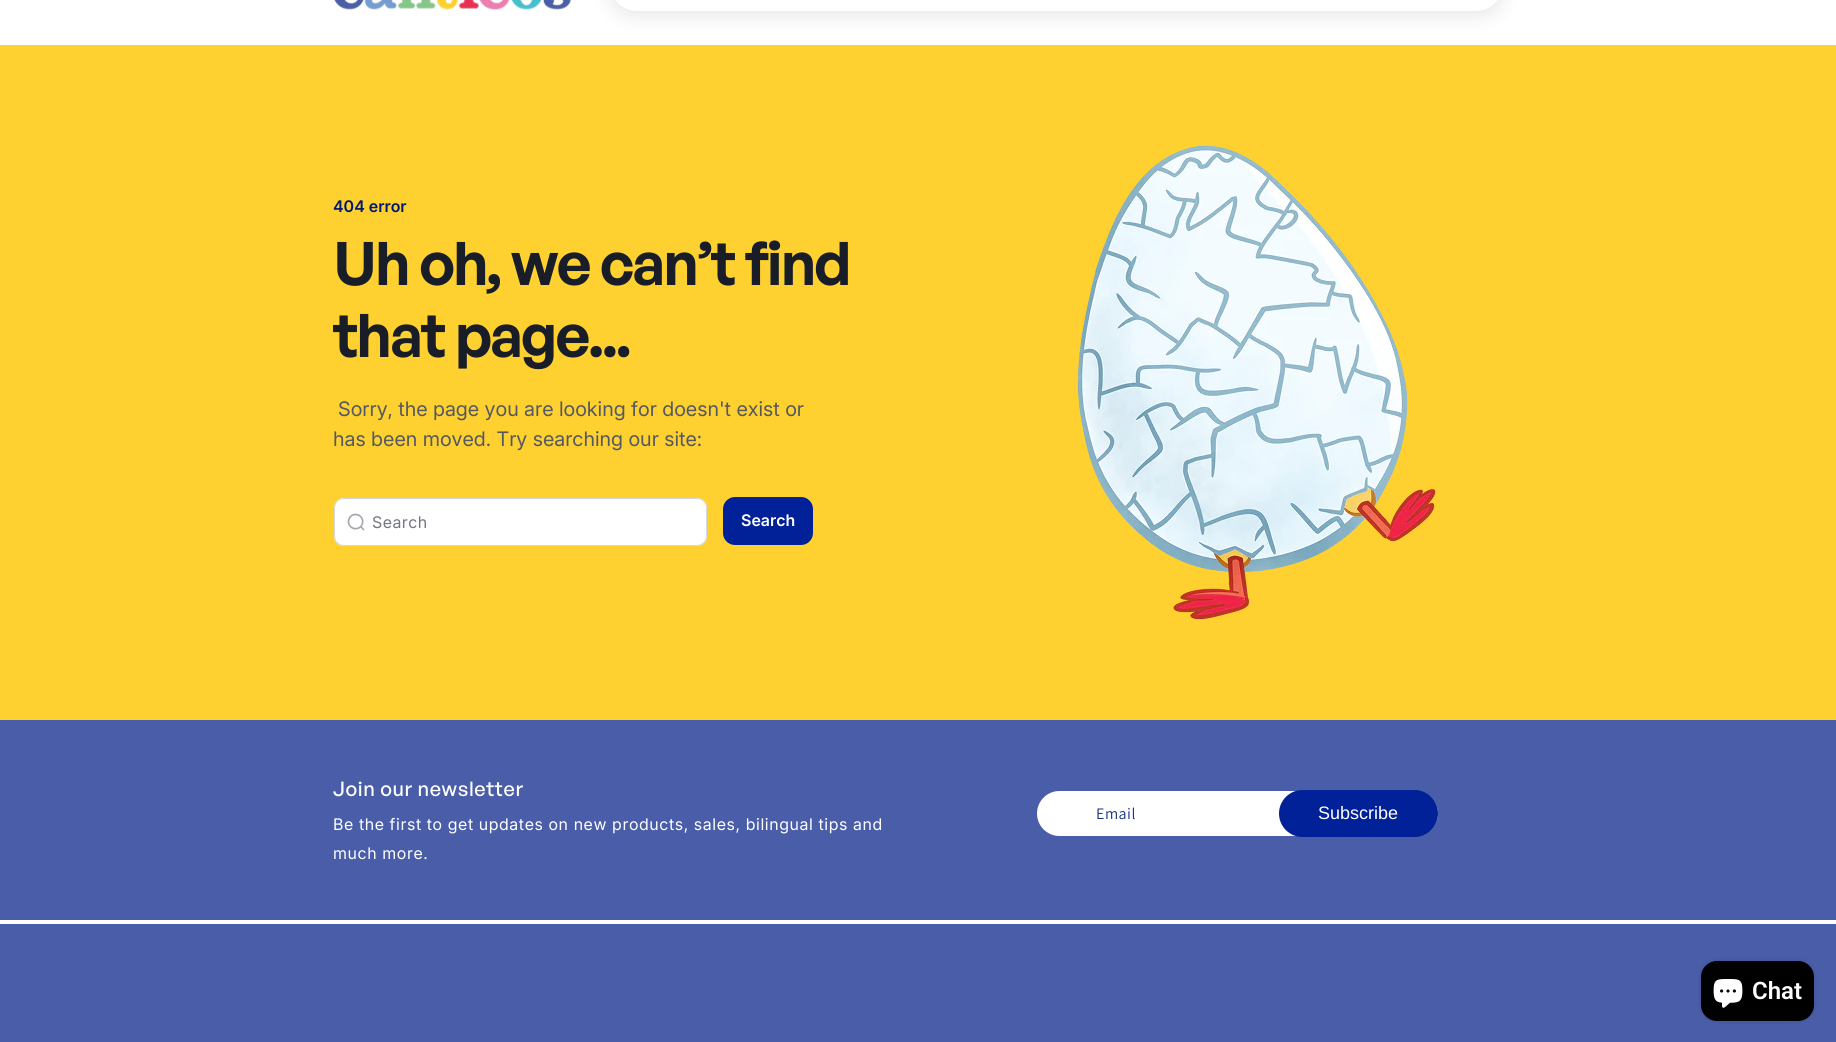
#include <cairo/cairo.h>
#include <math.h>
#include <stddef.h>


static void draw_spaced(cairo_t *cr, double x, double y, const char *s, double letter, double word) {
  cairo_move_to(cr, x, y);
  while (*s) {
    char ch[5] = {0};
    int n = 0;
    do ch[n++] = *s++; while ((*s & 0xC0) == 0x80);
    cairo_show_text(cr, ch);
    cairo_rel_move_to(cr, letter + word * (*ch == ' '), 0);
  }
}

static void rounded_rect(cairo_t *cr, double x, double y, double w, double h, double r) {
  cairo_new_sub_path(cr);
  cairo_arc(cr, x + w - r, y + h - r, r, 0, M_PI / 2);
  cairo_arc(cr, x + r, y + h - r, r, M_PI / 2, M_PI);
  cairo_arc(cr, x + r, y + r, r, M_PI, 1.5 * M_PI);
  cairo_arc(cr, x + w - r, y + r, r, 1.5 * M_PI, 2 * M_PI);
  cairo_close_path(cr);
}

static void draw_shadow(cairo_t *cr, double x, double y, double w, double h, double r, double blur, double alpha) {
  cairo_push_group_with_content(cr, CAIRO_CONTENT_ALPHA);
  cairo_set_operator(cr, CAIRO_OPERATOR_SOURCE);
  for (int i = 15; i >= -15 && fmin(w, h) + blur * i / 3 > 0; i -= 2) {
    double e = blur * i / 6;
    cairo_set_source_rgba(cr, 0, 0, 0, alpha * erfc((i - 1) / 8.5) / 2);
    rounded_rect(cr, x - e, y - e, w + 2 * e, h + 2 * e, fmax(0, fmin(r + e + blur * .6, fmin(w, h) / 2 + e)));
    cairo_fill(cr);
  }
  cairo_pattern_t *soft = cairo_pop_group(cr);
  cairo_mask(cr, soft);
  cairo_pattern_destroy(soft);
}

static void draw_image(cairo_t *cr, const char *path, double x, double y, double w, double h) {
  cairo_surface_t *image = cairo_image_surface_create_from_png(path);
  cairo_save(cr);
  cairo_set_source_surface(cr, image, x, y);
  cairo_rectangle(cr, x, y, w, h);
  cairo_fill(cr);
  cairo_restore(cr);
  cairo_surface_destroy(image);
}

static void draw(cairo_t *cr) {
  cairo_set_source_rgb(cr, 1, 1, 1);
  cairo_paint(cr);
  draw_image(cr, "images/1.png", 334, 0, 237, 10);
  cairo_set_source_rgb(cr, 254 / 255.0, 209 / 255.0, 48 / 255.0);
  cairo_rectangle(cr, 0, 45, 1836, 675);
  cairo_fill(cr);
  cairo_set_source_rgb(cr, 0, 0, 0);
  draw_shadow(cr, 610, -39, 893, 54, 27, 10, 0.1);
  cairo_set_source_rgb(cr, 1, 1, 1);
  rounded_rect(cr, 610, -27, 893, 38, 27);
  cairo_fill(cr);
  rounded_rect(cr, 334, 498, 373, 48, 10);
  cairo_fill(cr);
  draw_image(cr, "images/2.png", 347, 513, 18, 18);
  rounded_rect(cr, 334.5, 498.5, 372, 47, 9.5);
  cairo_set_source_rgb(cr, 213 / 255.0, 215 / 255.0, 218 / 255.0);
  cairo_set_line_width(cr, 1);
  cairo_stroke(cr);
  cairo_set_source_rgb(cr, 0, 33 / 255.0, 152 / 255.0);
  rounded_rect(cr, 723, 497, 90, 48, 12);
  cairo_fill(cr);
  draw_image(cr, "images/3.png", 1078, 145, 358, 475);
  cairo_set_source_rgb(cr, 74 / 255.0, 93 / 255.0, 169 / 255.0);
  cairo_rectangle(cr, 0, 720, 1836, 200);
  cairo_fill(cr);
  cairo_set_source_rgb(cr, 1, 1, 1);
  rounded_rect(cr, 1037, 791, 401, 45, 22.5);
  cairo_fill(cr);
  cairo_set_source_rgb(cr, 0, 33 / 255.0, 152 / 255.0);
  rounded_rect(cr, 1279, 790, 159, 47, 23.5);
  cairo_fill(cr);
  cairo_set_source_rgb(cr, 74 / 255.0, 93 / 255.0, 169 / 255.0);
  cairo_rectangle(cr, 0, 924, 1836, 118);
  cairo_fill(cr);
  cairo_set_source_rgb(cr, 0, 0, 0);
  draw_shadow(cr, 1701, 961, 113, 60, 16, 2.5, 0.15);
  cairo_set_source_rgb(cr, 0, 0, 0);
  rounded_rect(cr, 1701, 961, 113, 60, 16);
  cairo_fill(cr);
  draw_image(cr, "images/4.png", 1713, 979, 30, 29);
  cairo_select_font_face(cr, "Inter SemiBold", CAIRO_FONT_SLANT_NORMAL, CAIRO_FONT_WEIGHT_NORMAL);
  cairo_set_font_size(cr, 16);
  cairo_set_source_rgb(cr, 0, 24 / 255.0, 113 / 255.0);
  cairo_move_to(cr, 333, 212);
  cairo_show_text(cr, "404 error");
  cairo_select_font_face(cr, "General Sans SemiBold", CAIRO_FONT_SLANT_NORMAL, CAIRO_FONT_WEIGHT_NORMAL);
  cairo_set_font_size(cr, 60);
  cairo_set_source_rgb(cr, 24 / 255.0, 29 / 255.0, 39 / 255.0);
  draw_spaced(cr, 333, 285, "Uh oh, we can’t find", -2, 0);
  draw_spaced(cr, 333, 357, "that page...", -2, 0);
  cairo_select_font_face(cr, "Inter", CAIRO_FONT_SLANT_NORMAL, CAIRO_FONT_WEIGHT_NORMAL);
  cairo_set_font_size(cr, 20);
  cairo_set_source_rgb(cr, 83 / 255.0, 88 / 255.0, 98 / 255.0);
  cairo_move_to(cr, 338, 416);
  cairo_show_text(cr, "Sorry, the page you are looking for doesn't exist or");
  cairo_move_to(cr, 333, 446);
  cairo_show_text(cr, "has been moved. Try searching our site:");
  cairo_select_font_face(cr, "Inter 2", CAIRO_FONT_SLANT_NORMAL, CAIRO_FONT_WEIGHT_NORMAL);
  cairo_set_font_size(cr, 16);
  cairo_set_source_rgb(cr, 113 / 255.0, 118 / 255.0, 128 / 255.0);
  draw_spaced(cr, 372, 528, "Search", 0.5, 0);
  cairo_select_font_face(cr, "Inter SemiBold", CAIRO_FONT_SLANT_NORMAL, CAIRO_FONT_WEIGHT_NORMAL);
  cairo_set_source_rgb(cr, 1, 1, 1);
  cairo_move_to(cr, 741, 526);
  cairo_show_text(cr, "Search");
  cairo_select_font_face(cr, "General Sans Medium", CAIRO_FONT_SLANT_NORMAL, CAIRO_FONT_WEIGHT_NORMAL);
  cairo_set_font_size(cr, 20);
  draw_spaced(cr, 333, 796, "Join our newsletter", 0.6, 0);
  cairo_select_font_face(cr, "Inter 2", CAIRO_FONT_SLANT_NORMAL, CAIRO_FONT_WEIGHT_NORMAL);
  cairo_set_font_size(cr, 16);
  draw_spaced(cr, 333, 830, "Be the first to get updates on new products, sales, bilingual tips and", 0.6, 0);
  draw_spaced(cr, 333, 859, "much more.", 0.6, 0);
  cairo_select_font_face(cr, "Assistant", CAIRO_FONT_SLANT_NORMAL, CAIRO_FONT_WEIGHT_NORMAL);
  cairo_set_source_rgb(cr, 23 / 255.0, 52 / 255.0, 130 / 255.0);
  draw_spaced(cr, 1096, 819, "Email", 0.5, 0);
  cairo_select_font_face(cr, "Liberation Sans", CAIRO_FONT_SLANT_NORMAL, CAIRO_FONT_WEIGHT_NORMAL);
  cairo_set_font_size(cr, 18);
  cairo_set_source_rgb(cr, 1, 1, 1);
  cairo_move_to(cr, 1318, 819);
  cairo_show_text(cr, "Subscribe");
  cairo_select_font_face(cr, "Roboto SemiBold", CAIRO_FONT_SLANT_NORMAL, CAIRO_FONT_WEIGHT_NORMAL);
  cairo_set_font_size(cr, 24);
  cairo_move_to(cr, 1752, 999);
  cairo_show_text(cr, "Chat");
}

int main(void) {
  cairo_surface_t *surface = cairo_image_surface_create(CAIRO_FORMAT_RGB24, 1836, 1042);
  cairo_t *cr = cairo_create(surface);
  cairo_font_options_t *options = cairo_font_options_create();
  cairo_font_options_set_hint_metrics(options, CAIRO_HINT_METRICS_OFF);
  cairo_font_options_set_hint_style(options, CAIRO_HINT_STYLE_NONE);
  cairo_set_font_options(cr, options);
  cairo_set_miter_limit(cr, 4);
  draw(cr);
  cairo_surface_write_to_png(surface, "out.png");
  cairo_font_options_destroy(options);
  cairo_destroy(cr);
  cairo_surface_destroy(surface);
  return 0;
}
